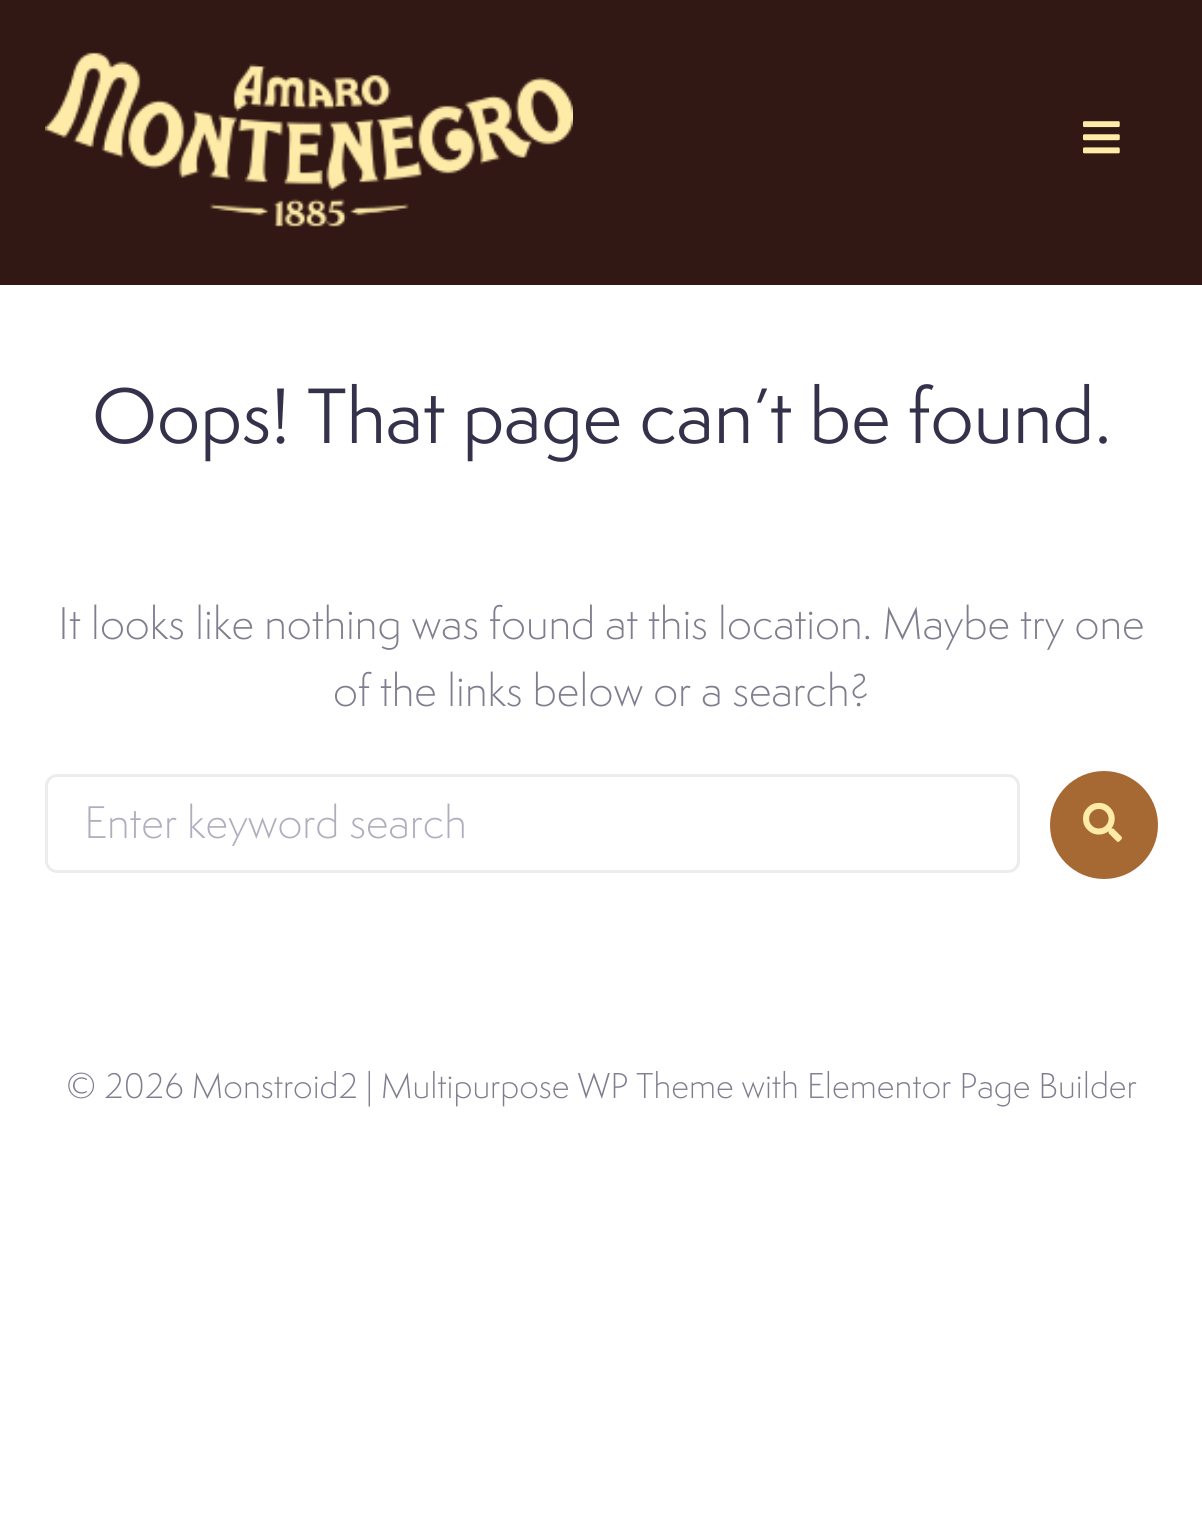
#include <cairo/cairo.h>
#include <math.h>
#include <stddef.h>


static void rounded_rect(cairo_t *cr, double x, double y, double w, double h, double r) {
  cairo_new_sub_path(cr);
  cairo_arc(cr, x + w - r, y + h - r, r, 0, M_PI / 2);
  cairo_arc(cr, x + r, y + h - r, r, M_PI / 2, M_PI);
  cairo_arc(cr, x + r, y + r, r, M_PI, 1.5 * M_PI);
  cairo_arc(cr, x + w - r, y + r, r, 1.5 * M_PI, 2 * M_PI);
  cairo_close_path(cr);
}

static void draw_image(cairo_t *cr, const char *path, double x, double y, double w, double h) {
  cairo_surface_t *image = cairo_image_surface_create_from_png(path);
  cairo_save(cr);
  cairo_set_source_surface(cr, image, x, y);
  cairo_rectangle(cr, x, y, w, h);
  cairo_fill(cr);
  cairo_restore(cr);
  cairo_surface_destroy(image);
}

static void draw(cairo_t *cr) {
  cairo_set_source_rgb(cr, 1, 1, 1);
  cairo_paint(cr);
  cairo_set_source_rgb(cr, 50 / 255.0, 24 / 255.0, 21 / 255.0);
  cairo_rectangle(cr, 0, 0, 1202, 285);
  cairo_fill(cr);
  draw_image(cr, "images/1.png", 45, 52, 528, 175);
  draw_image(cr, "images/2.png", 1083, 121, 37, 33);
  rounded_rect(cr, 46.5, 775.5, 972, 96, 10.5);
  cairo_set_source_rgb(cr, 235 / 255.0, 236 / 255.0, 237 / 255.0);
  cairo_set_line_width(cr, 3);
  cairo_stroke(cr);
  cairo_set_source_rgb(cr, 167 / 255.0, 105 / 255.0, 52 / 255.0);
  cairo_arc(cr, 1104, 825, 54, 0, 2 * M_PI);
  cairo_fill(cr);
  draw_image(cr, "images/3.png", 1083, 802, 39, 40);
  cairo_select_font_face(cr, "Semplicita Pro", CAIRO_FONT_SLANT_NORMAL, CAIRO_FONT_WEIGHT_NORMAL);
  cairo_set_font_size(cr, 72);
  cairo_set_source_rgb(cr, 52 / 255.0, 49 / 255.0, 75 / 255.0);
  cairo_move_to(cr, 92, 443);
  cairo_show_text(cr, "Oops! That page can’t be found.");
  cairo_select_font_face(cr, "Semplicita Pro Light", CAIRO_FONT_SLANT_NORMAL, CAIRO_FONT_WEIGHT_NORMAL);
  cairo_set_font_size(cr, 42);
  cairo_set_source_rgb(cr, 127 / 255.0, 125 / 255.0, 142 / 255.0);
  cairo_move_to(cr, 58, 639);
  cairo_show_text(cr, "It looks like nothing was found at this location. Maybe try one");
  cairo_move_to(cr, 333, 706);
  cairo_show_text(cr, "of the links below or a search?");
  cairo_save(cr);
  cairo_rectangle(cr, 84, 801, 885, 45);
  cairo_clip(cr);
  cairo_set_source_rgb(cr, 176 / 255.0, 174 / 255.0, 190 / 255.0);
  cairo_move_to(cr, 84, 838);
  cairo_show_text(cr, "Enter keyword search");
  cairo_restore(cr);
  cairo_set_font_size(cr, 33);
  cairo_move_to(cr, 66, 1098);
  cairo_show_text(cr, "© 2026 Monstroid2 | Multipurpose WP Theme with Elementor Page Builder");
}

int main(void) {
  cairo_surface_t *surface = cairo_image_surface_create(CAIRO_FORMAT_RGB24, 1202, 1532);
  cairo_t *cr = cairo_create(surface);
  cairo_font_options_t *options = cairo_font_options_create();
  cairo_font_options_set_hint_metrics(options, CAIRO_HINT_METRICS_OFF);
  cairo_font_options_set_hint_style(options, CAIRO_HINT_STYLE_NONE);
  cairo_set_font_options(cr, options);
  cairo_set_miter_limit(cr, 4);
  draw(cr);
  cairo_surface_write_to_png(surface, "out.png");
  cairo_font_options_destroy(options);
  cairo_destroy(cr);
  cairo_surface_destroy(surface);
  return 0;
}
